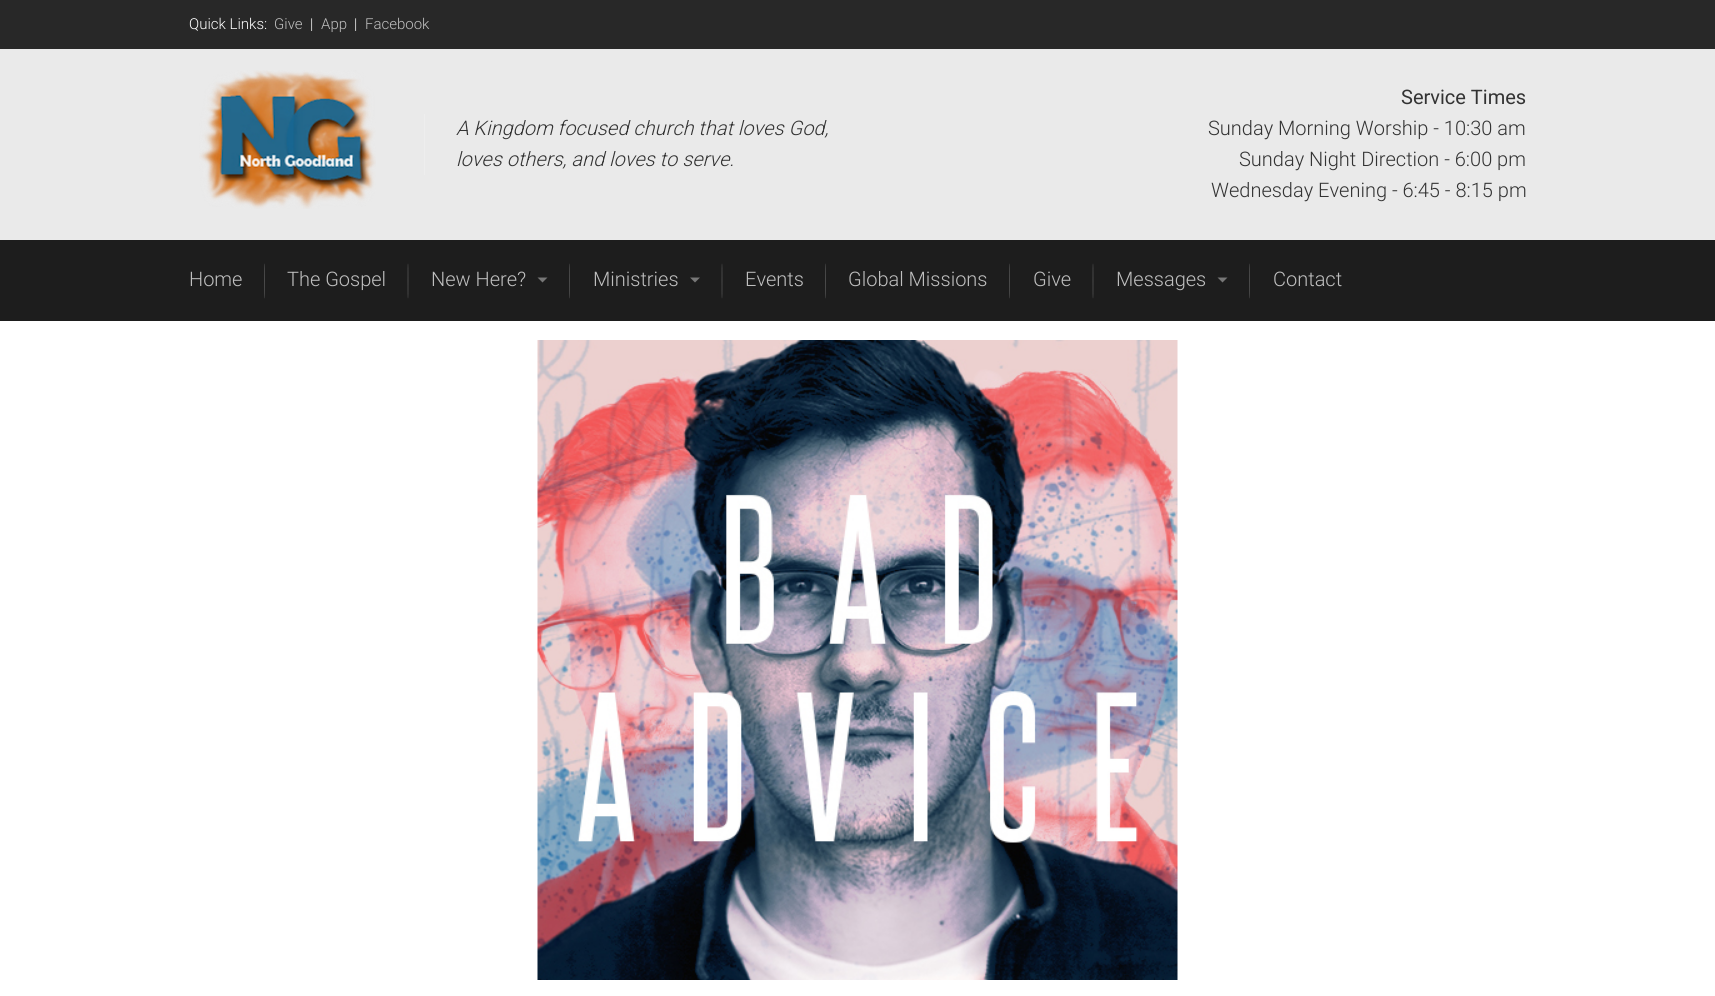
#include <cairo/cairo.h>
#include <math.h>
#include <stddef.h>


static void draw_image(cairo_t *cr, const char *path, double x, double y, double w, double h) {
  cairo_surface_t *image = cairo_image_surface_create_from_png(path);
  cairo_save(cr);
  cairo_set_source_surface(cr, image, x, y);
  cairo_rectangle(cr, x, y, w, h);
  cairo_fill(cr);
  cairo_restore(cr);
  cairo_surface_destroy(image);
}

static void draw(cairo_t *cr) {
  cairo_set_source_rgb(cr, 1, 1, 1);
  cairo_paint(cr);
  cairo_set_source_rgb(cr, 40 / 255.0, 40 / 255.0, 40 / 255.0);
  cairo_rectangle(cr, 0, 0, 1715, 49);
  cairo_fill(cr);
  cairo_set_source_rgb(cr, 234 / 255.0, 234 / 255.0, 234 / 255.0);
  cairo_rectangle(cr, 0, 49, 1715, 191);
  cairo_fill(cr);
  draw_image(cr, "images/1.png", 199, 70, 177, 139);
  cairo_set_source_rgb(cr, 238 / 255.0, 238 / 255.0, 238 / 255.0);
  cairo_rectangle(cr, 424, 114, 1, 61);
  cairo_fill(cr);
  cairo_set_source_rgb(cr, 29 / 255.0, 29 / 255.0, 29 / 255.0);
  cairo_rectangle(cr, 0, 240, 1715, 81);
  cairo_fill(cr);
  cairo_set_source_rgb(cr, 74 / 255.0, 74 / 255.0, 74 / 255.0);
  cairo_new_path(cr);
  cairo_move_to(cr, 264.5, 263.5);
  cairo_curve_to(cr, 265, 263.5, 265, 271.5, 265, 281);
  cairo_curve_to(cr, 265, 290.5, 265, 298.5, 264.5, 298.5);
  cairo_curve_to(cr, 264, 298.5, 264, 290.5, 264, 281);
  cairo_curve_to(cr, 264, 271.5, 264, 263.5, 264.5, 263.5);
  cairo_close_path(cr);
  cairo_fill(cr);
  cairo_new_path(cr);
  cairo_move_to(cr, 408, 263.5);
  cairo_curve_to(cr, 408.5, 263.5, 408.5, 271.5, 408.5, 281);
  cairo_curve_to(cr, 408.5, 290.5, 408.5, 298.5, 408, 298.5);
  cairo_curve_to(cr, 407.5, 298.5, 407.5, 290.5, 407.5, 281);
  cairo_curve_to(cr, 407.5, 271.5, 407.5, 263.5, 408, 263.5);
  cairo_close_path(cr);
  cairo_fill(cr);
  cairo_set_source_rgb(cr, 119 / 255.0, 119 / 255.0, 119 / 255.0);
  cairo_new_path(cr);
  cairo_move_to(cr, 537.5, 277.5);
  cairo_line_to(cr, 547.5, 277.5);
  cairo_line_to(cr, 542.5, 282.5);
  cairo_close_path(cr);
  cairo_fill(cr);
  cairo_set_source_rgb(cr, 74 / 255.0, 74 / 255.0, 74 / 255.0);
  cairo_new_path(cr);
  cairo_move_to(cr, 569.5, 263.5);
  cairo_curve_to(cr, 570, 263.5, 570, 271.5, 570, 281);
  cairo_curve_to(cr, 570, 290.5, 570, 298.5, 569.5, 298.5);
  cairo_curve_to(cr, 569, 298.5, 569, 290.5, 569, 281);
  cairo_curve_to(cr, 569, 271.5, 569, 263.5, 569.5, 263.5);
  cairo_close_path(cr);
  cairo_fill(cr);
  cairo_set_source_rgb(cr, 119 / 255.0, 119 / 255.0, 119 / 255.0);
  cairo_new_path(cr);
  cairo_move_to(cr, 690, 277.5);
  cairo_line_to(cr, 700, 277.5);
  cairo_line_to(cr, 695, 282.5);
  cairo_close_path(cr);
  cairo_fill(cr);
  cairo_set_source_rgb(cr, 74 / 255.0, 74 / 255.0, 74 / 255.0);
  cairo_new_path(cr);
  cairo_move_to(cr, 722, 263.5);
  cairo_curve_to(cr, 722.5, 263.5, 722.5, 271.5, 722.5, 281);
  cairo_curve_to(cr, 722.5, 290.5, 722.5, 298.5, 722, 298.5);
  cairo_curve_to(cr, 721.5, 298.5, 721.5, 290.5, 721.5, 281);
  cairo_curve_to(cr, 721.5, 271.5, 721.5, 263.5, 722, 263.5);
  cairo_close_path(cr);
  cairo_fill(cr);
  cairo_new_path(cr);
  cairo_move_to(cr, 825.5, 263.5);
  cairo_curve_to(cr, 826, 263.5, 826, 271.5, 826, 281);
  cairo_curve_to(cr, 826, 290.5, 826, 298.5, 825.5, 298.5);
  cairo_curve_to(cr, 825, 298.5, 825, 290.5, 825, 281);
  cairo_curve_to(cr, 825, 271.5, 825, 263.5, 825.5, 263.5);
  cairo_close_path(cr);
  cairo_fill(cr);
  cairo_new_path(cr);
  cairo_move_to(cr, 1009.5, 263.5);
  cairo_curve_to(cr, 1010, 263.5, 1010, 271.5, 1010, 281);
  cairo_curve_to(cr, 1010, 290.5, 1010, 298.5, 1009.5, 298.5);
  cairo_curve_to(cr, 1009, 298.5, 1009, 290.5, 1009, 281);
  cairo_curve_to(cr, 1009, 271.5, 1009, 263.5, 1009.5, 263.5);
  cairo_close_path(cr);
  cairo_fill(cr);
  cairo_new_path(cr);
  cairo_move_to(cr, 1093, 263.5);
  cairo_curve_to(cr, 1093.5, 263.5, 1093.5, 271.5, 1093.5, 281);
  cairo_curve_to(cr, 1093.5, 290.5, 1093.5, 298.5, 1093, 298.5);
  cairo_curve_to(cr, 1092.5, 298.5, 1092.5, 290.5, 1092.5, 281);
  cairo_curve_to(cr, 1092.5, 271.5, 1092.5, 263.5, 1093, 263.5);
  cairo_close_path(cr);
  cairo_fill(cr);
  cairo_set_source_rgb(cr, 119 / 255.0, 119 / 255.0, 119 / 255.0);
  cairo_new_path(cr);
  cairo_move_to(cr, 1217.5, 277.5);
  cairo_line_to(cr, 1227.5, 277.5);
  cairo_line_to(cr, 1222.5, 282.5);
  cairo_close_path(cr);
  cairo_fill(cr);
  cairo_set_source_rgb(cr, 74 / 255.0, 74 / 255.0, 74 / 255.0);
  cairo_new_path(cr);
  cairo_move_to(cr, 1249.5, 263.5);
  cairo_curve_to(cr, 1250, 263.5, 1250, 271.5, 1250, 281);
  cairo_curve_to(cr, 1250, 290.5, 1250, 298.5, 1249.5, 298.5);
  cairo_curve_to(cr, 1249, 298.5, 1249, 290.5, 1249, 281);
  cairo_curve_to(cr, 1249, 271.5, 1249, 263.5, 1249.5, 263.5);
  cairo_close_path(cr);
  cairo_fill(cr);
  draw_image(cr, "images/2.png", 537, 340, 641, 640);
  cairo_select_font_face(cr, "Roboto Light", CAIRO_FONT_SLANT_NORMAL, CAIRO_FONT_WEIGHT_NORMAL);
  cairo_set_font_size(cr, 15);
  cairo_set_source_rgb(cr, 1, 1, 1);
  cairo_move_to(cr, 189, 29);
  cairo_show_text(cr, "Quick Links:");
  cairo_set_source_rgb(cr, 191 / 255.0, 191 / 255.0, 191 / 255.0);
  cairo_move_to(cr, 274, 29);
  cairo_show_text(cr, "Give");
  cairo_set_source_rgb(cr, 1, 1, 1);
  cairo_move_to(cr, 310, 29);
  cairo_show_text(cr, "|");
  cairo_set_source_rgb(cr, 191 / 255.0, 191 / 255.0, 191 / 255.0);
  cairo_move_to(cr, 321, 29);
  cairo_show_text(cr, "App");
  cairo_set_source_rgb(cr, 1, 1, 1);
  cairo_move_to(cr, 354, 29);
  cairo_show_text(cr, "|");
  cairo_set_source_rgb(cr, 191 / 255.0, 191 / 255.0, 191 / 255.0);
  cairo_move_to(cr, 365, 29);
  cairo_show_text(cr, "Facebook");
  cairo_select_font_face(cr, "Roboto Light", CAIRO_FONT_SLANT_ITALIC, CAIRO_FONT_WEIGHT_NORMAL);
  cairo_set_font_size(cr, 20);
  cairo_set_source_rgb(cr, 51 / 255.0, 51 / 255.0, 51 / 255.0);
  cairo_move_to(cr, 456, 135);
  cairo_show_text(cr, "A Kingdom focused church that loves God,");
  cairo_move_to(cr, 456, 166);
  cairo_show_text(cr, "loves others, and loves to serve.");
  cairo_select_font_face(cr, "Roboto", CAIRO_FONT_SLANT_NORMAL, CAIRO_FONT_WEIGHT_NORMAL);
  cairo_move_to(cr, 1401, 104);
  cairo_show_text(cr, "Service Times");
  cairo_select_font_face(cr, "Roboto Light", CAIRO_FONT_SLANT_NORMAL, CAIRO_FONT_WEIGHT_NORMAL);
  cairo_move_to(cr, 1208, 135);
  cairo_show_text(cr, "Sunday Morning Worship - 10:30 am");
  cairo_move_to(cr, 1239, 166);
  cairo_show_text(cr, "Sunday Night Direction - 6:00 pm");
  cairo_move_to(cr, 1211, 197);
  cairo_show_text(cr, "Wednesday Evening - 6:45 - 8:15 pm");
  cairo_set_source_rgb(cr, 191 / 255.0, 191 / 255.0, 191 / 255.0);
  cairo_move_to(cr, 189, 286);
  cairo_show_text(cr, "Home");
  cairo_move_to(cr, 287, 286);
  cairo_show_text(cr, "The Gospel");
  cairo_move_to(cr, 431, 286);
  cairo_show_text(cr, "New Here?");
  cairo_move_to(cr, 593, 286);
  cairo_show_text(cr, "Ministries");
  cairo_move_to(cr, 745, 286);
  cairo_show_text(cr, "Events");
  cairo_move_to(cr, 848, 286);
  cairo_show_text(cr, "Global Missions");
  cairo_move_to(cr, 1033, 286);
  cairo_show_text(cr, "Give");
  cairo_move_to(cr, 1116, 286);
  cairo_show_text(cr, "Messages");
  cairo_move_to(cr, 1273, 286);
  cairo_show_text(cr, "Contact");
}

int main(void) {
  cairo_surface_t *surface = cairo_image_surface_create(CAIRO_FORMAT_RGB24, 1715, 996);
  cairo_t *cr = cairo_create(surface);
  cairo_font_options_t *options = cairo_font_options_create();
  cairo_font_options_set_hint_metrics(options, CAIRO_HINT_METRICS_OFF);
  cairo_font_options_set_hint_style(options, CAIRO_HINT_STYLE_NONE);
  cairo_set_font_options(cr, options);
  cairo_set_miter_limit(cr, 4);
  draw(cr);
  cairo_surface_write_to_png(surface, "out.png");
  cairo_font_options_destroy(options);
  cairo_destroy(cr);
  cairo_surface_destroy(surface);
  return 0;
}
